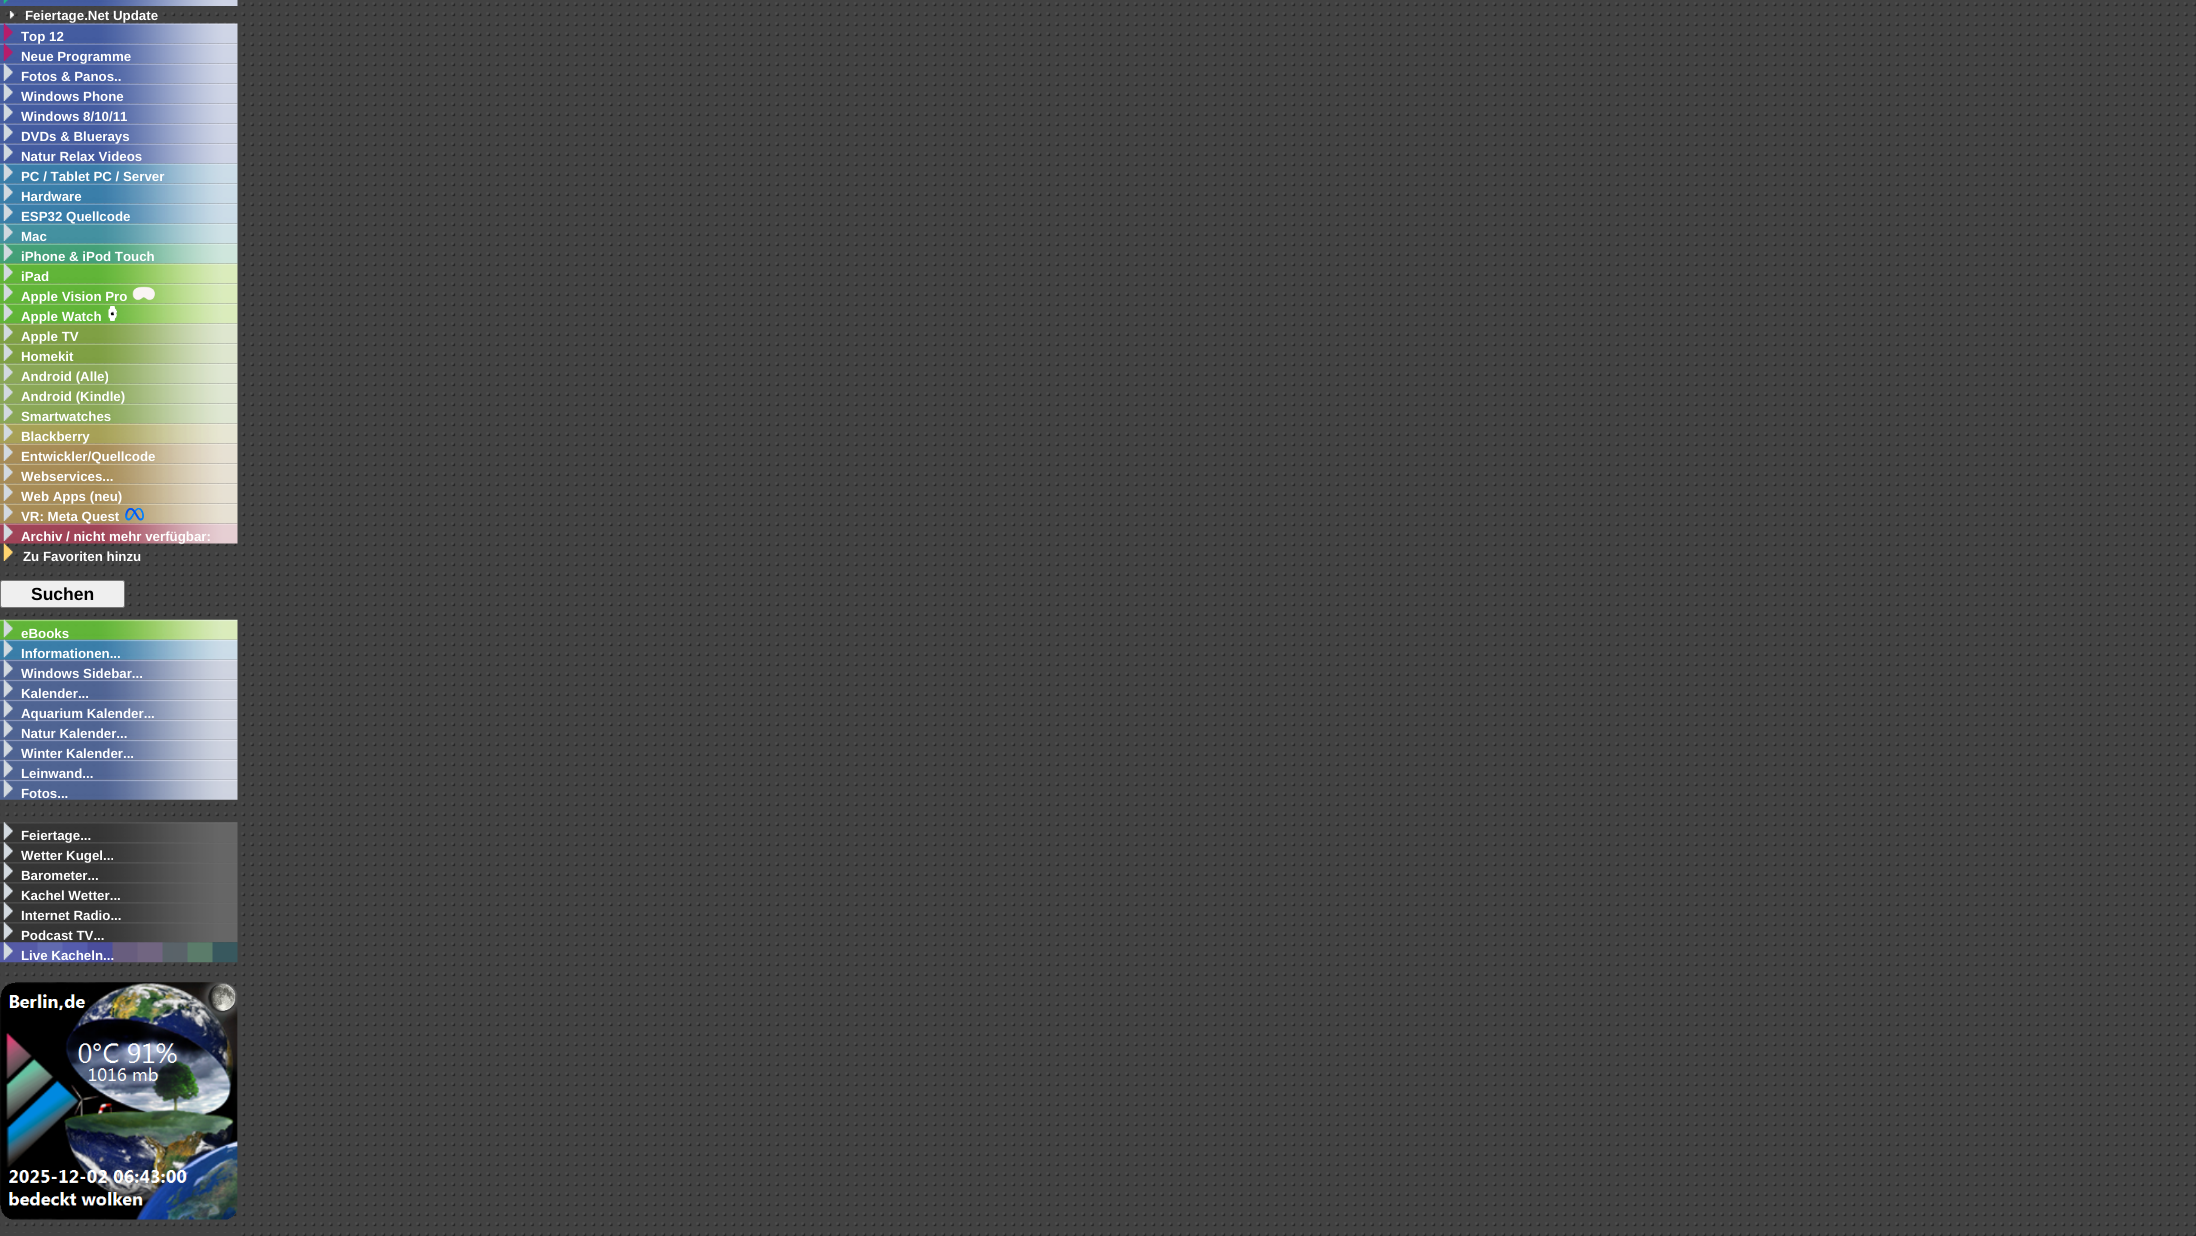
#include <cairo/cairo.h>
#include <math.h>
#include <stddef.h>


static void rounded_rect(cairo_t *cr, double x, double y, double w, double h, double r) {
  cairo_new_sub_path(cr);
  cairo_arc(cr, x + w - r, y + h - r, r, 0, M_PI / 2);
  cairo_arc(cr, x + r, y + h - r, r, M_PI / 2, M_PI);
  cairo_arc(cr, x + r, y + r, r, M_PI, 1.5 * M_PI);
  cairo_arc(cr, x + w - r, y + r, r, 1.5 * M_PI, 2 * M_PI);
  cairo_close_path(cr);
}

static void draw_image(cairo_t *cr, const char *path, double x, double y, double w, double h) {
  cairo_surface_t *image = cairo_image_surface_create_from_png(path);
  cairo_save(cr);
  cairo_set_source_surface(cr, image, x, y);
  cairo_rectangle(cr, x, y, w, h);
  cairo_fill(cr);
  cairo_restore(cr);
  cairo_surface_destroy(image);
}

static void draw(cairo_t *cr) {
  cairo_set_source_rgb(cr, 1, 1, 1);
  cairo_paint(cr);
  draw_image(cr, "images/1.png", 0, 0, 2196, 1236);
  draw_image(cr, "images/2.png", 0, 0, 238, 6);
  draw_image(cr, "images/3.png", 3, 0, 5, 4);
  draw_image(cr, "images/4.png", 9, 11, 5, 8);
  draw_image(cr, "images/5.png", 0, 23, 238, 21);
  draw_image(cr, "images/6.png", 3, 23, 10, 18);
  draw_image(cr, "images/7.png", 0, 43, 238, 21);
  draw_image(cr, "images/8.png", 3, 43, 10, 18);
  draw_image(cr, "images/7.png", 0, 63, 238, 21);
  draw_image(cr, "images/9.png", 3, 63, 10, 18);
  draw_image(cr, "images/7.png", 0, 83, 238, 21);
  draw_image(cr, "images/9.png", 3, 83, 10, 18);
  draw_image(cr, "images/7.png", 0, 103, 238, 21);
  draw_image(cr, "images/9.png", 3, 103, 10, 18);
  draw_image(cr, "images/7.png", 0, 123, 238, 21);
  draw_image(cr, "images/9.png", 3, 123, 10, 18);
  draw_image(cr, "images/7.png", 0, 143, 238, 21);
  draw_image(cr, "images/9.png", 3, 143, 10, 18);
  draw_image(cr, "images/10.png", 0, 163, 238, 21);
  draw_image(cr, "images/11.png", 3, 163, 10, 18);
  draw_image(cr, "images/12.png", 0, 183, 238, 21);
  draw_image(cr, "images/13.png", 3, 183, 10, 18);
  draw_image(cr, "images/12.png", 0, 203, 238, 21);
  draw_image(cr, "images/13.png", 3, 203, 10, 18);
  draw_image(cr, "images/14.png", 0, 223, 238, 21);
  draw_image(cr, "images/15.png", 3, 223, 10, 18);
  draw_image(cr, "images/16.png", 0, 243, 238, 21);
  draw_image(cr, "images/17.png", 3, 243, 10, 18);
  draw_image(cr, "images/18.png", 0, 263, 238, 21);
  draw_image(cr, "images/19.png", 3, 263, 10, 18);
  draw_image(cr, "images/20.png", 0, 283, 238, 21);
  draw_image(cr, "images/21.png", 3, 283, 10, 18);
  draw_image(cr, "images/22.png", 132, 286, 23, 15);
  draw_image(cr, "images/20.png", 0, 303, 238, 21);
  draw_image(cr, "images/21.png", 3, 303, 10, 18);
  draw_image(cr, "images/23.png", 108, 306, 10, 15);
  draw_image(cr, "images/24.png", 0, 323, 238, 21);
  draw_image(cr, "images/25.png", 3, 323, 10, 18);
  draw_image(cr, "images/26.png", 0, 343, 238, 21);
  draw_image(cr, "images/27.png", 3, 343, 10, 18);
  draw_image(cr, "images/28.png", 0, 363, 238, 21);
  draw_image(cr, "images/29.png", 3, 363, 10, 18);
  draw_image(cr, "images/30.png", 0, 383, 238, 21);
  draw_image(cr, "images/31.png", 3, 383, 10, 18);
  draw_image(cr, "images/30.png", 0, 403, 238, 21);
  draw_image(cr, "images/31.png", 3, 403, 10, 18);
  draw_image(cr, "images/32.png", 0, 423, 238, 21);
  draw_image(cr, "images/33.png", 3, 423, 10, 18);
  draw_image(cr, "images/34.png", 0, 443, 238, 21);
  draw_image(cr, "images/35.png", 3, 443, 10, 18);
  draw_image(cr, "images/36.png", 0, 463, 238, 21);
  draw_image(cr, "images/37.png", 3, 463, 10, 18);
  draw_image(cr, "images/36.png", 0, 483, 238, 21);
  draw_image(cr, "images/37.png", 3, 483, 10, 18);
  draw_image(cr, "images/36.png", 0, 503, 238, 21);
  draw_image(cr, "images/37.png", 3, 503, 10, 18);
  draw_image(cr, "images/38.png", 125, 508, 19, 13);
  draw_image(cr, "images/39.png", 0, 523, 238, 21);
  draw_image(cr, "images/40.png", 3, 523, 10, 18);
  draw_image(cr, "images/41.png", 3, 543, 10, 18);
  cairo_set_source_rgb(cr, 239 / 255.0, 239 / 255.0, 239 / 255.0);
  rounded_rect(cr, 0.5, 580.5, 124, 27, 2);
  cairo_fill_preserve(cr);
  cairo_set_source_rgb(cr, 118 / 255.0, 118 / 255.0, 118 / 255.0);
  cairo_set_line_width(cr, 1);
  cairo_stroke(cr);
  draw_image(cr, "images/42.png", 0, 619, 238, 21);
  draw_image(cr, "images/43.png", 3, 619, 10, 19);
  draw_image(cr, "images/44.png", 0, 639, 238, 21);
  draw_image(cr, "images/45.png", 3, 639, 10, 19);
  draw_image(cr, "images/46.png", 0, 659, 238, 21);
  draw_image(cr, "images/47.png", 3, 659, 10, 19);
  draw_image(cr, "images/48.png", 0, 679, 238, 21);
  draw_image(cr, "images/49.png", 3, 679, 10, 19);
  draw_image(cr, "images/48.png", 0, 699, 238, 21);
  draw_image(cr, "images/49.png", 3, 699, 10, 19);
  draw_image(cr, "images/48.png", 0, 719, 238, 21);
  draw_image(cr, "images/49.png", 3, 719, 10, 19);
  draw_image(cr, "images/50.png", 0, 739, 238, 21);
  draw_image(cr, "images/51.png", 3, 739, 10, 19);
  draw_image(cr, "images/48.png", 0, 759, 238, 21);
  draw_image(cr, "images/49.png", 3, 759, 10, 19);
  draw_image(cr, "images/48.png", 0, 779, 238, 21);
  draw_image(cr, "images/49.png", 3, 779, 10, 19);
  draw_image(cr, "images/52.png", 0, 822, 238, 21);
  draw_image(cr, "images/53.png", 3, 822, 10, 18);
  draw_image(cr, "images/54.png", 0, 842, 238, 21);
  draw_image(cr, "images/55.png", 3, 842, 10, 18);
  draw_image(cr, "images/54.png", 0, 862, 238, 21);
  draw_image(cr, "images/55.png", 3, 862, 10, 18);
  draw_image(cr, "images/54.png", 0, 882, 238, 21);
  draw_image(cr, "images/55.png", 3, 882, 10, 18);
  draw_image(cr, "images/54.png", 0, 902, 238, 21);
  draw_image(cr, "images/55.png", 3, 902, 10, 18);
  draw_image(cr, "images/54.png", 0, 922, 238, 21);
  draw_image(cr, "images/55.png", 3, 922, 10, 18);
  draw_image(cr, "images/56.png", 0, 942, 238, 21);
  draw_image(cr, "images/57.png", 3, 942, 10, 18);
  draw_image(cr, "images/58.png", 0, 982, 238, 238);
  cairo_set_source_rgb(cr, 66 / 255.0, 66 / 255.0, 66 / 255.0);
  cairo_rectangle(cr, 0, 1233, 237, 3);
  cairo_fill(cr);
  cairo_select_font_face(cr, "Liberation Sans", CAIRO_FONT_SLANT_NORMAL, CAIRO_FONT_WEIGHT_BOLD);
  cairo_set_font_size(cr, 13.3);
  cairo_set_source_rgb(cr, 1, 1, 1);
  cairo_move_to(cr, 25, 20);
  cairo_show_text(cr, "Feiertage.Net Update");
  cairo_move_to(cr, 21, 41);
  cairo_show_text(cr, "Top 12");
  cairo_move_to(cr, 21, 61);
  cairo_show_text(cr, "Neue Programme");
  cairo_move_to(cr, 21, 81);
  cairo_show_text(cr, "Fotos & Panos..");
  cairo_move_to(cr, 21, 101);
  cairo_show_text(cr, "Windows Phone");
  cairo_move_to(cr, 21, 121);
  cairo_show_text(cr, "Windows 8/10/11");
  cairo_move_to(cr, 21, 141);
  cairo_show_text(cr, "DVDs & Bluerays");
  cairo_move_to(cr, 21, 161);
  cairo_show_text(cr, "Natur Relax Videos");
  cairo_move_to(cr, 21, 181);
  cairo_show_text(cr, "PC / Tablet PC / Server");
  cairo_move_to(cr, 21, 201);
  cairo_show_text(cr, "Hardware");
  cairo_move_to(cr, 21, 221);
  cairo_show_text(cr, "ESP32 Quellcode");
  cairo_move_to(cr, 21, 241);
  cairo_show_text(cr, "Mac");
  cairo_move_to(cr, 21, 261);
  cairo_show_text(cr, "iPhone & iPod Touch");
  cairo_move_to(cr, 21, 281);
  cairo_show_text(cr, "iPad");
  cairo_move_to(cr, 21, 301);
  cairo_show_text(cr, "Apple Vision Pro");
  cairo_move_to(cr, 21, 321);
  cairo_show_text(cr, "Apple Watch");
  cairo_move_to(cr, 21, 341);
  cairo_show_text(cr, "Apple TV");
  cairo_move_to(cr, 21, 361);
  cairo_show_text(cr, "Homekit");
  cairo_move_to(cr, 21, 381);
  cairo_show_text(cr, "Android (Alle)");
  cairo_move_to(cr, 21, 401);
  cairo_show_text(cr, "Android (Kindle)");
  cairo_move_to(cr, 21, 421);
  cairo_show_text(cr, "Smartwatches");
  cairo_move_to(cr, 21, 441);
  cairo_show_text(cr, "Blackberry");
  cairo_move_to(cr, 21, 461);
  cairo_show_text(cr, "Entwickler/Quellcode");
  cairo_move_to(cr, 21, 481);
  cairo_show_text(cr, "Webservices...");
  cairo_move_to(cr, 21, 501);
  cairo_show_text(cr, "Web Apps (neu)");
  cairo_move_to(cr, 21, 521);
  cairo_show_text(cr, "VR: Meta Quest");
  cairo_move_to(cr, 21, 541);
  cairo_show_text(cr, "Archiv / nicht mehr verfügbar:");
  cairo_move_to(cr, 23, 561);
  cairo_show_text(cr, "Zu Favoriten hinzu");
  cairo_set_font_size(cr, 17.5);
  cairo_set_source_rgb(cr, 0, 0, 0);
  cairo_move_to(cr, 31, 600);
  cairo_show_text(cr, "Suchen");
  cairo_set_font_size(cr, 13.3);
  cairo_set_source_rgb(cr, 1, 1, 1);
  cairo_move_to(cr, 21, 638);
  cairo_show_text(cr, "eBooks");
  cairo_move_to(cr, 21, 658);
  cairo_show_text(cr, "Informationen...");
  cairo_move_to(cr, 21, 678);
  cairo_show_text(cr, "Windows Sidebar...");
  cairo_move_to(cr, 21, 698);
  cairo_show_text(cr, "Kalender...");
  cairo_move_to(cr, 21, 718);
  cairo_show_text(cr, "Aquarium Kalender...");
  cairo_move_to(cr, 21, 738);
  cairo_show_text(cr, "Natur Kalender...");
  cairo_move_to(cr, 21, 758);
  cairo_show_text(cr, "Winter Kalender...");
  cairo_move_to(cr, 21, 778);
  cairo_show_text(cr, "Leinwand...");
  cairo_move_to(cr, 21, 798);
  cairo_show_text(cr, "Fotos...");
  cairo_move_to(cr, 21, 840);
  cairo_show_text(cr, "Feiertage...");
  cairo_move_to(cr, 21, 860);
  cairo_show_text(cr, "Wetter Kugel...");
  cairo_move_to(cr, 21, 880);
  cairo_show_text(cr, "Barometer...");
  cairo_move_to(cr, 21, 900);
  cairo_show_text(cr, "Kachel Wetter...");
  cairo_move_to(cr, 21, 920);
  cairo_show_text(cr, "Internet Radio...");
  cairo_move_to(cr, 21, 940);
  cairo_show_text(cr, "Podcast TV...");
  cairo_move_to(cr, 21, 960);
  cairo_show_text(cr, "Live Kacheln...");
}

int main(void) {
  cairo_surface_t *surface = cairo_image_surface_create(CAIRO_FORMAT_RGB24, 2196, 1236);
  cairo_t *cr = cairo_create(surface);
  cairo_font_options_t *options = cairo_font_options_create();
  cairo_font_options_set_hint_metrics(options, CAIRO_HINT_METRICS_OFF);
  cairo_font_options_set_hint_style(options, CAIRO_HINT_STYLE_NONE);
  cairo_set_font_options(cr, options);
  cairo_set_miter_limit(cr, 4);
  draw(cr);
  cairo_surface_write_to_png(surface, "out.png");
  cairo_font_options_destroy(options);
  cairo_destroy(cr);
  cairo_surface_destroy(surface);
  return 0;
}
